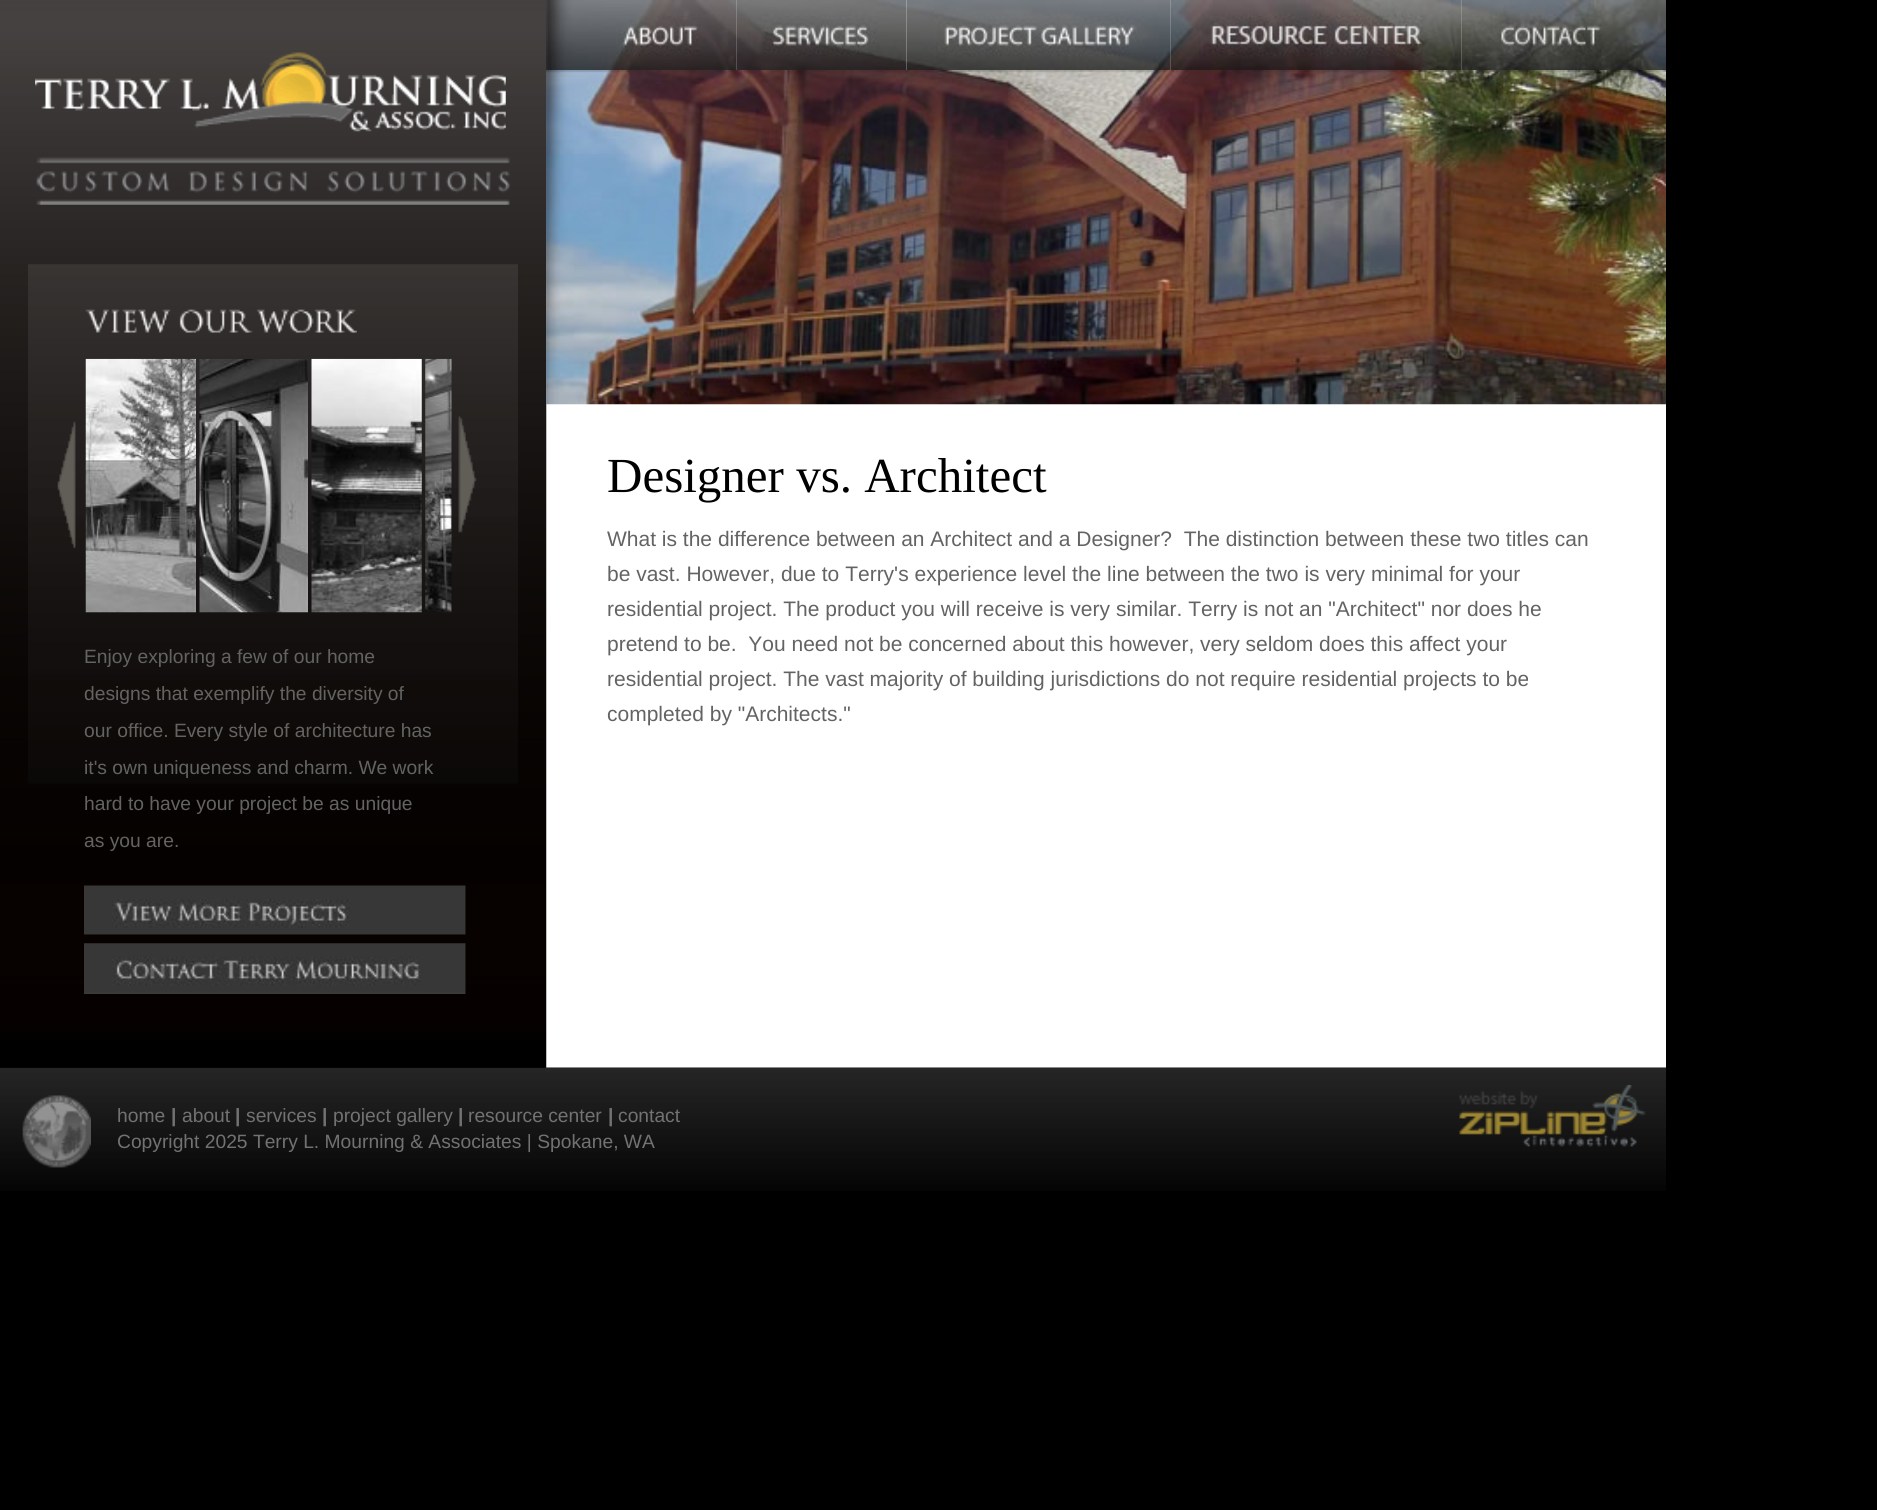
#include <cairo/cairo.h>
#include <math.h>
#include <stddef.h>


static void draw_image(cairo_t *cr, const char *path, double x, double y, double w, double h) {
  cairo_surface_t *image = cairo_image_surface_create_from_png(path);
  cairo_save(cr);
  cairo_set_source_surface(cr, image, x, y);
  cairo_rectangle(cr, x, y, w, h);
  cairo_fill(cr);
  cairo_restore(cr);
  cairo_surface_destroy(image);
}

static void draw(cairo_t *cr) {
  cairo_set_source_rgb(cr, 0, 0, 0);
  cairo_paint(cr);
  draw_image(cr, "images/21.png", 0, 1067, 1666, 124);
  draw_image(cr, "images/1.png", 0, 0, 1666, 1068);
  draw_image(cr, "images/2.png", 546, 0, 191, 70);
  draw_image(cr, "images/3.png", 736, 0, 171, 70);
  draw_image(cr, "images/4.png", 906, 0, 265, 70);
  draw_image(cr, "images/5.png", 1170, 0, 292, 70);
  draw_image(cr, "images/6.png", 1461, 0, 205, 70);
  draw_image(cr, "images/7.png", 546, 70, 1120, 335);
  draw_image(cr, "images/8.png", 0, 0, 546, 1068);
  draw_image(cr, "images/9.png", 35, 52, 471, 80);
  draw_image(cr, "images/10.png", 36, 157, 474, 48);
  draw_image(cr, "images/11.png", 28, 264, 490, 520);
  draw_image(cr, "images/12.png", 85, 309, 272, 24);
  draw_image(cr, "images/13.png", 57, 421, 19, 128);
  draw_image(cr, "images/14.png", 85, 358, 111, 255);
  draw_image(cr, "images/15.png", 199, 359, 109, 254);
  draw_image(cr, "images/16.png", 311, 358, 111, 255);
  draw_image(cr, "images/17.png", 425, 358, 27, 255);
  draw_image(cr, "images/18.png", 458, 416, 19, 117);
  draw_image(cr, "images/19.png", 84, 885, 382, 50);
  draw_image(cr, "images/20.png", 84, 943, 382, 51);
  draw_image(cr, "images/22.png", 22, 1095, 69, 73);
  draw_image(cr, "images/23.png", 1459, 1085, 187, 62);
  cairo_select_font_face(cr, "Liberation Serif", CAIRO_FONT_SLANT_NORMAL, CAIRO_FONT_WEIGHT_NORMAL);
  cairo_set_font_size(cr, 49);
  cairo_set_source_rgb(cr, 0, 0, 0);
  cairo_move_to(cr, 607, 492);
  cairo_show_text(cr, "Designer vs. Architect");
  cairo_select_font_face(cr, "Liberation Sans", CAIRO_FONT_SLANT_NORMAL, CAIRO_FONT_WEIGHT_NORMAL);
  cairo_set_font_size(cr, 21);
  cairo_set_source_rgb(cr, 99 / 255.0, 99 / 255.0, 99 / 255.0);
  cairo_move_to(cr, 607, 546);
  cairo_show_text(cr, "What is the difference between an Architect and a Designer?  The distinction between these two titles can");
  cairo_move_to(cr, 607, 581);
  cairo_show_text(cr, "be vast. However, due to Terry's experience level the line between the two is very minimal for your");
  cairo_move_to(cr, 607, 616);
  cairo_show_text(cr, "residential project. The product you will receive is very similar. Terry is not an \"Architect\" nor does he");
  cairo_move_to(cr, 607, 651);
  cairo_show_text(cr, "pretend to be.  You need not be concerned about this however, very seldom does this affect your");
  cairo_move_to(cr, 607, 686);
  cairo_show_text(cr, "residential project. The vast majority of building jurisdictions do not require residential projects to be");
  cairo_move_to(cr, 607, 721);
  cairo_show_text(cr, "completed by \"Architects.\"");
  cairo_set_font_size(cr, 19.25);
  cairo_move_to(cr, 84, 663);
  cairo_show_text(cr, "Enjoy exploring a few of our home");
  cairo_move_to(cr, 84, 700);
  cairo_show_text(cr, "designs that exemplify the diversity of");
  cairo_move_to(cr, 84, 737);
  cairo_show_text(cr, "our office. Every style of architecture has");
  cairo_move_to(cr, 84, 774);
  cairo_show_text(cr, "it's own uniqueness and charm. We work");
  cairo_move_to(cr, 84, 810);
  cairo_show_text(cr, "hard to have your project be as unique");
  cairo_move_to(cr, 84, 847);
  cairo_show_text(cr, "as you are.");
  cairo_set_source_rgb(cr, 114 / 255.0, 114 / 255.0, 114 / 255.0);
  cairo_move_to(cr, 117, 1122);
  cairo_show_text(cr, "home");
  cairo_select_font_face(cr, "Liberation Sans", CAIRO_FONT_SLANT_NORMAL, CAIRO_FONT_WEIGHT_BOLD);
  cairo_move_to(cr, 171, 1122);
  cairo_show_text(cr, "|");
  cairo_select_font_face(cr, "Liberation Sans", CAIRO_FONT_SLANT_NORMAL, CAIRO_FONT_WEIGHT_NORMAL);
  cairo_move_to(cr, 182, 1122);
  cairo_show_text(cr, "about");
  cairo_select_font_face(cr, "Liberation Sans", CAIRO_FONT_SLANT_NORMAL, CAIRO_FONT_WEIGHT_BOLD);
  cairo_move_to(cr, 235, 1122);
  cairo_show_text(cr, "|");
  cairo_select_font_face(cr, "Liberation Sans", CAIRO_FONT_SLANT_NORMAL, CAIRO_FONT_WEIGHT_NORMAL);
  cairo_move_to(cr, 246, 1122);
  cairo_show_text(cr, "services");
  cairo_select_font_face(cr, "Liberation Sans", CAIRO_FONT_SLANT_NORMAL, CAIRO_FONT_WEIGHT_BOLD);
  cairo_move_to(cr, 322, 1122);
  cairo_show_text(cr, "|");
  cairo_select_font_face(cr, "Liberation Sans", CAIRO_FONT_SLANT_NORMAL, CAIRO_FONT_WEIGHT_NORMAL);
  cairo_move_to(cr, 333, 1122);
  cairo_show_text(cr, "project gallery");
  cairo_select_font_face(cr, "Liberation Sans", CAIRO_FONT_SLANT_NORMAL, CAIRO_FONT_WEIGHT_BOLD);
  cairo_move_to(cr, 458, 1122);
  cairo_show_text(cr, "|");
  cairo_select_font_face(cr, "Liberation Sans", CAIRO_FONT_SLANT_NORMAL, CAIRO_FONT_WEIGHT_NORMAL);
  cairo_move_to(cr, 468, 1122);
  cairo_show_text(cr, "resource center");
  cairo_select_font_face(cr, "Liberation Sans", CAIRO_FONT_SLANT_NORMAL, CAIRO_FONT_WEIGHT_BOLD);
  cairo_move_to(cr, 608, 1122);
  cairo_show_text(cr, "|");
  cairo_select_font_face(cr, "Liberation Sans", CAIRO_FONT_SLANT_NORMAL, CAIRO_FONT_WEIGHT_NORMAL);
  cairo_move_to(cr, 618, 1122);
  cairo_show_text(cr, "contact");
  cairo_move_to(cr, 117, 1148);
  cairo_show_text(cr, "Copyright 2025 Terry L. Mourning & Associates | Spokane, WA");
}

int main(void) {
  cairo_surface_t *surface = cairo_image_surface_create(CAIRO_FORMAT_RGB24, 1877, 1510);
  cairo_t *cr = cairo_create(surface);
  cairo_font_options_t *options = cairo_font_options_create();
  cairo_font_options_set_hint_metrics(options, CAIRO_HINT_METRICS_OFF);
  cairo_font_options_set_hint_style(options, CAIRO_HINT_STYLE_NONE);
  cairo_set_font_options(cr, options);
  cairo_set_miter_limit(cr, 4);
  draw(cr);
  cairo_surface_write_to_png(surface, "out.png");
  cairo_font_options_destroy(options);
  cairo_destroy(cr);
  cairo_surface_destroy(surface);
  return 0;
}
